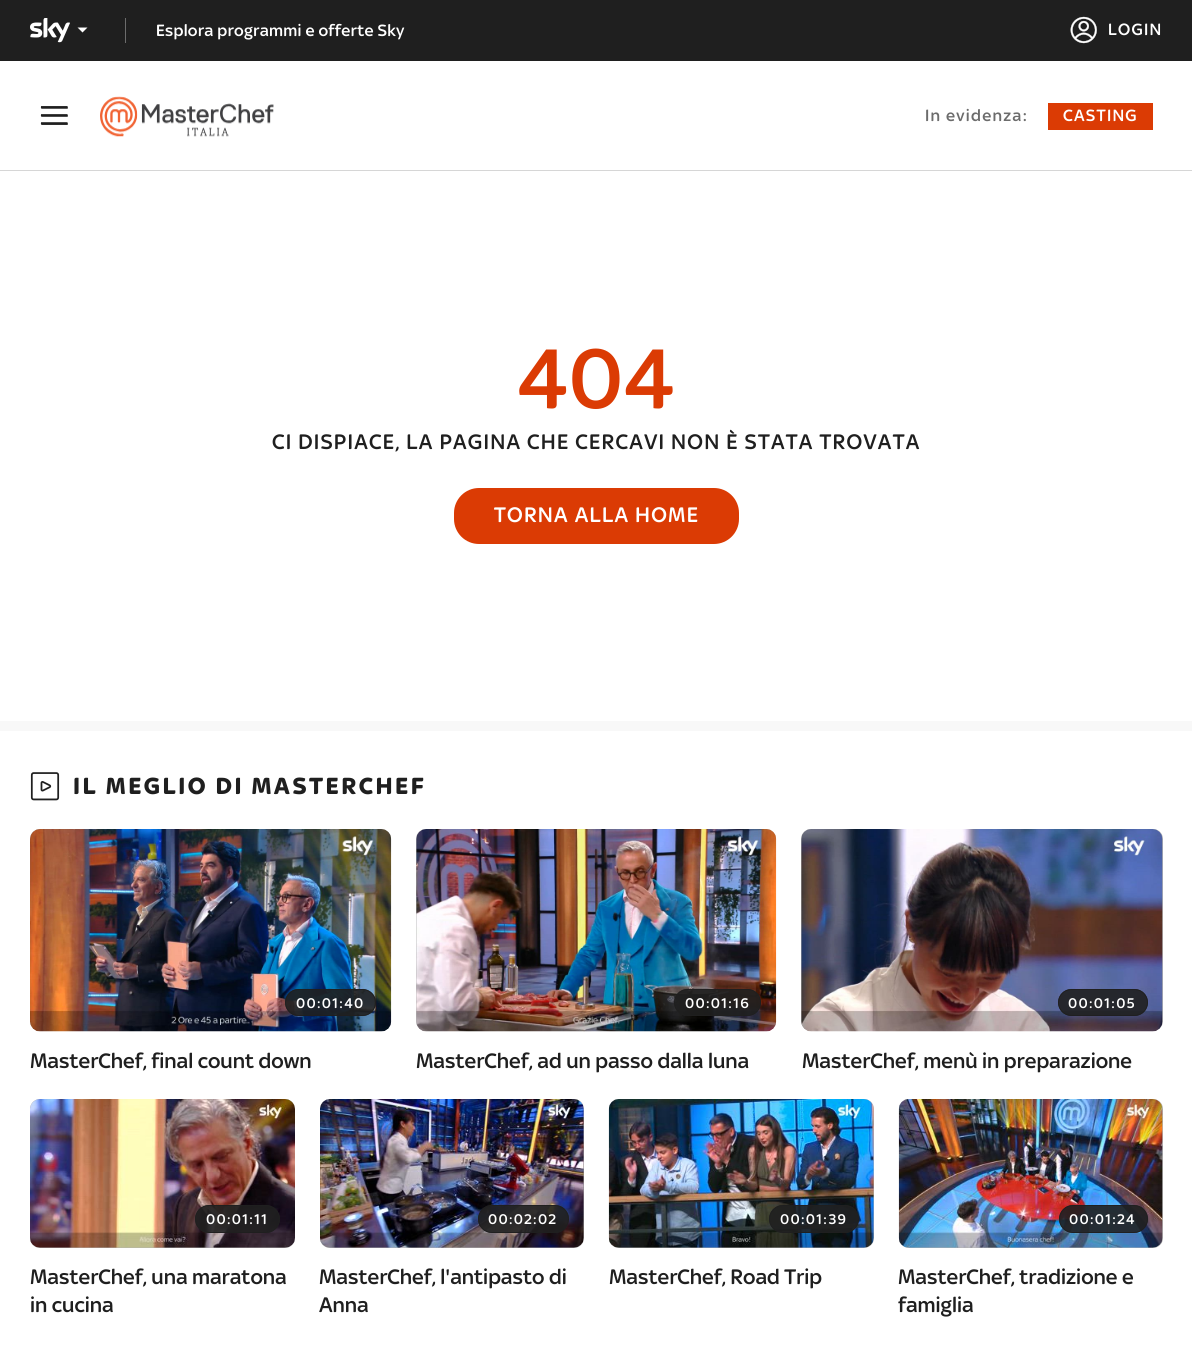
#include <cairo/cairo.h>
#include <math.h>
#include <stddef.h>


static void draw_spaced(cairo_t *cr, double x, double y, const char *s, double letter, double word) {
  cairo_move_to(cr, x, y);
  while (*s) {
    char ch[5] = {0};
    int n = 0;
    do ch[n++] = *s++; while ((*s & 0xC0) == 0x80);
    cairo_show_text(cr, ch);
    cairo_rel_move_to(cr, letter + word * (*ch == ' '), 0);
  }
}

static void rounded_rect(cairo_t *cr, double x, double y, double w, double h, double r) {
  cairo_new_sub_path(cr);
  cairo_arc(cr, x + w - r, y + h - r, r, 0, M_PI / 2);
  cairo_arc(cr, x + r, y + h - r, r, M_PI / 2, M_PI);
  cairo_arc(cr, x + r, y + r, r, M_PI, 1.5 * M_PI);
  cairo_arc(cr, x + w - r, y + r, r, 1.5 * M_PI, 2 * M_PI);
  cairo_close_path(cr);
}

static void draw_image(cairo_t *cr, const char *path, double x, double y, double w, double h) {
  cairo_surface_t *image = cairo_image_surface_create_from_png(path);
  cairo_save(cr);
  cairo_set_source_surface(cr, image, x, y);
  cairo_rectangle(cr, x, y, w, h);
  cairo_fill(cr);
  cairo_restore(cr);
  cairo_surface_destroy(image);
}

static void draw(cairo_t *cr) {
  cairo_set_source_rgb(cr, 31 / 255.0, 31 / 255.0, 31 / 255.0);
  cairo_paint(cr);
  draw_image(cr, "images/1.png", 30, 18, 40, 25);
  cairo_set_source_rgb(cr, 1, 1, 1);
  cairo_set_fill_rule(cr, CAIRO_FILL_RULE_EVEN_ODD);
  cairo_new_path(cr);
  cairo_move_to(cr, 77.5, 27.5);
  cairo_line_to(cr, 87.5, 27.5);
  cairo_line_to(cr, 82.5, 32.5);
  cairo_close_path(cr);
  cairo_fill(cr);
  cairo_set_source_rgb(cr, 108 / 255.0, 108 / 255.0, 108 / 255.0);
  cairo_rectangle(cr, 125, 18, 1, 25);
  cairo_fill(cr);
  draw_image(cr, "images/2.png", 1070, 16, 27, 28);
  cairo_set_source_rgb(cr, 1, 1, 1);
  cairo_rectangle(cr, 0, 61, 1192, 109);
  cairo_fill(cr);
  cairo_set_source_rgb(cr, 214 / 255.0, 214 / 255.0, 214 / 255.0);
  cairo_rectangle(cr, 0, 170, 1192, 1);
  cairo_fill(cr);
  draw_image(cr, "images/3.png", 40, 106, 28, 19);
  draw_image(cr, "images/4.png", 100, 96, 174, 41);
  cairo_set_source_rgb(cr, 219 / 255.0, 59 / 255.0, 4 / 255.0);
  cairo_rectangle(cr, 1048, 103, 105, 27);
  cairo_fill(cr);
  cairo_set_source_rgb(cr, 1, 1, 1);
  cairo_rectangle(cr, 0, 171, 1192, 1201);
  cairo_fill(cr);
  cairo_set_source_rgb(cr, 219 / 255.0, 59 / 255.0, 4 / 255.0);
  rounded_rect(cr, 454, 488, 285, 56, 25);
  cairo_fill(cr);
  cairo_set_source_rgb(cr, 248 / 255.0, 248 / 255.0, 248 / 255.0);
  cairo_rectangle(cr, 0, 721, 1192, 10);
  cairo_fill(cr);
  draw_image(cr, "images/5.png", 30, 772, 30, 29);
  cairo_set_source_rgb(cr, 179 / 255.0, 179 / 255.0, 179 / 255.0);
  rounded_rect(cr, 30, 829, 361, 202, 10);
  cairo_fill(cr);
  draw_image(cr, "images/6.png", 30, 829, 362, 203);
  cairo_set_source_rgba(cr, 31 / 255.0, 31 / 255.0, 31 / 255.0, 0.9);
  rounded_rect(cr, 285, 989, 91, 27, 13.5);
  cairo_fill(cr);
  rounded_rect(cr, 285.5, 989.5, 90, 26, 13);
  cairo_set_line_width(cr, 1);
  cairo_stroke(cr);
  cairo_set_source_rgb(cr, 179 / 255.0, 179 / 255.0, 179 / 255.0);
  rounded_rect(cr, 416, 829, 360, 202, 10);
  cairo_fill(cr);
  draw_image(cr, "images/7.png", 416, 829, 361, 203);
  cairo_set_source_rgba(cr, 31 / 255.0, 31 / 255.0, 31 / 255.0, 0.9);
  rounded_rect(cr, 674, 989, 87, 27, 13.5);
  cairo_fill(cr);
  rounded_rect(cr, 674.5, 989.5, 86, 26, 13);
  cairo_stroke(cr);
  cairo_set_source_rgb(cr, 179 / 255.0, 179 / 255.0, 179 / 255.0);
  rounded_rect(cr, 801, 829, 362, 202, 10);
  cairo_fill(cr);
  draw_image(cr, "images/8.png", 801, 829, 362, 203);
  cairo_set_source_rgba(cr, 31 / 255.0, 31 / 255.0, 31 / 255.0, 0.9);
  rounded_rect(cr, 1058, 989, 90, 27, 13.5);
  cairo_fill(cr);
  rounded_rect(cr, 1058.5, 989.5, 89, 26, 13);
  cairo_stroke(cr);
  cairo_set_source_rgb(cr, 179 / 255.0, 179 / 255.0, 179 / 255.0);
  rounded_rect(cr, 30, 1099, 265, 149, 10);
  cairo_fill(cr);
  draw_image(cr, "images/9.png", 30, 1099, 265, 149);
  cairo_set_source_rgba(cr, 31 / 255.0, 31 / 255.0, 31 / 255.0, 0.9);
  rounded_rect(cr, 195, 1205, 85, 28, 14);
  cairo_fill(cr);
  rounded_rect(cr, 195.5, 1205.5, 84, 27, 13.5);
  cairo_stroke(cr);
  cairo_set_source_rgb(cr, 179 / 255.0, 179 / 255.0, 179 / 255.0);
  rounded_rect(cr, 320, 1099, 264, 149, 10);
  cairo_fill(cr);
  draw_image(cr, "images/10.png", 320, 1099, 264, 149);
  cairo_set_source_rgba(cr, 31 / 255.0, 31 / 255.0, 31 / 255.0, 0.9);
  rounded_rect(cr, 478, 1205, 91, 28, 14);
  cairo_fill(cr);
  rounded_rect(cr, 478.5, 1205.5, 90, 27, 13.5);
  cairo_stroke(cr);
  cairo_set_source_rgb(cr, 179 / 255.0, 179 / 255.0, 179 / 255.0);
  rounded_rect(cr, 609, 1099, 265, 149, 10);
  cairo_fill(cr);
  draw_image(cr, "images/11.png", 608, 1099, 266, 149);
  cairo_set_source_rgba(cr, 31 / 255.0, 31 / 255.0, 31 / 255.0, 0.9);
  rounded_rect(cr, 769, 1205, 90, 28, 14);
  cairo_fill(cr);
  rounded_rect(cr, 769.5, 1205.5, 89, 27, 13.5);
  cairo_stroke(cr);
  cairo_set_source_rgb(cr, 179 / 255.0, 179 / 255.0, 179 / 255.0);
  rounded_rect(cr, 899, 1099, 264, 149, 10);
  cairo_fill(cr);
  draw_image(cr, "images/12.png", 898, 1099, 265, 149);
  cairo_set_source_rgba(cr, 31 / 255.0, 31 / 255.0, 31 / 255.0, 0.9);
  rounded_rect(cr, 1059, 1205, 89, 28, 14);
  cairo_fill(cr);
  rounded_rect(cr, 1059.5, 1205.5, 88, 27, 13.5);
  cairo_stroke(cr);
  cairo_select_font_face(cr, "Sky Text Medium", CAIRO_FONT_SLANT_NORMAL, CAIRO_FONT_WEIGHT_NORMAL);
  cairo_set_font_size(cr, 17.5);
  cairo_set_source_rgb(cr, 1, 1, 1);
  draw_spaced(cr, 156, 36, "Esplora programmi e offerte Sky", 0.25, 0);
  draw_spaced(cr, 1108, 35, "LOGIN", 1.25, 0);
  cairo_set_source_rgb(cr, 108 / 255.0, 108 / 255.0, 108 / 255.0);
  draw_spaced(cr, 925, 121, "In evidenza:", 1.25, 0);
  cairo_set_source_rgb(cr, 1, 1, 1);
  draw_spaced(cr, 1063, 121, "CASTING", 1.25, 0);
  cairo_set_font_size(cr, 90);
  cairo_set_source_rgb(cr, 219 / 255.0, 59 / 255.0, 4 / 255.0);
  cairo_move_to(cr, 517, 408);
  cairo_show_text(cr, "404");
  cairo_set_font_size(cr, 22.5);
  cairo_set_source_rgb(cr, 31 / 255.0, 31 / 255.0, 31 / 255.0);
  draw_spaced(cr, 272, 449, "CI DISPIACE, LA PAGINA CHE CERCAVI NON È STATA TROVATA", 1.25, 0);
  cairo_set_source_rgb(cr, 1, 1, 1);
  draw_spaced(cr, 494, 522, "TORNA ALLA HOME", 1.25, 0);
  cairo_select_font_face(cr, "Sky Text", CAIRO_FONT_SLANT_NORMAL, CAIRO_FONT_WEIGHT_BOLD);
  cairo_set_font_size(cr, 25);
  cairo_set_source_rgb(cr, 31 / 255.0, 31 / 255.0, 31 / 255.0);
  draw_spaced(cr, 73, 794, "IL MEGLIO DI MASTERCHEF", 2.5, 0);
  cairo_select_font_face(cr, "Sky Text Medium", CAIRO_FONT_SLANT_NORMAL, CAIRO_FONT_WEIGHT_NORMAL);
  cairo_set_font_size(cr, 15);
  cairo_set_source_rgb(cr, 1, 1, 1);
  draw_spaced(cr, 296, 1008, "00:01:40", 1.25, 0);
  cairo_set_font_size(cr, 22.5);
  cairo_set_source_rgb(cr, 31 / 255.0, 31 / 255.0, 31 / 255.0);
  cairo_move_to(cr, 30, 1068);
  cairo_show_text(cr, "MasterChef, final count down");
  cairo_set_font_size(cr, 15);
  cairo_set_source_rgb(cr, 1, 1, 1);
  draw_spaced(cr, 685, 1008, "00:01:16", 1.25, 0);
  cairo_set_font_size(cr, 22.5);
  cairo_set_source_rgb(cr, 31 / 255.0, 31 / 255.0, 31 / 255.0);
  cairo_move_to(cr, 416, 1068);
  cairo_show_text(cr, "MasterChef, ad un passo dalla luna");
  cairo_set_font_size(cr, 15);
  cairo_set_source_rgb(cr, 1, 1, 1);
  draw_spaced(cr, 1068, 1008, "00:01:05", 1.25, 0);
  cairo_set_font_size(cr, 22.5);
  cairo_set_source_rgb(cr, 31 / 255.0, 31 / 255.0, 31 / 255.0);
  cairo_move_to(cr, 802, 1068);
  cairo_show_text(cr, "MasterChef, menù in preparazione");
  cairo_set_font_size(cr, 15);
  cairo_set_source_rgb(cr, 1, 1, 1);
  draw_spaced(cr, 206, 1224, "00:01:11", 1.25, 0);
  cairo_set_font_size(cr, 22.5);
  cairo_set_source_rgb(cr, 31 / 255.0, 31 / 255.0, 31 / 255.0);
  cairo_move_to(cr, 30, 1284);
  cairo_show_text(cr, "MasterChef, una maratona");
  cairo_move_to(cr, 30, 1312);
  cairo_show_text(cr, "in cucina");
  cairo_set_font_size(cr, 15);
  cairo_set_source_rgb(cr, 1, 1, 1);
  draw_spaced(cr, 488, 1224, "00:02:02", 1.25, 0);
  cairo_set_font_size(cr, 22.5);
  cairo_set_source_rgb(cr, 31 / 255.0, 31 / 255.0, 31 / 255.0);
  cairo_move_to(cr, 319, 1284);
  cairo_show_text(cr, "MasterChef, l'antipasto di");
  cairo_move_to(cr, 319, 1312);
  cairo_show_text(cr, "Anna");
  cairo_set_font_size(cr, 15);
  cairo_set_source_rgb(cr, 1, 1, 1);
  draw_spaced(cr, 780, 1224, "00:01:39", 1.25, 0);
  cairo_set_font_size(cr, 22.5);
  cairo_set_source_rgb(cr, 31 / 255.0, 31 / 255.0, 31 / 255.0);
  cairo_move_to(cr, 609, 1284);
  cairo_show_text(cr, "MasterChef, Road Trip");
  cairo_set_font_size(cr, 15);
  cairo_set_source_rgb(cr, 1, 1, 1);
  draw_spaced(cr, 1069, 1224, "00:01:24", 1.25, 0);
  cairo_set_font_size(cr, 22.5);
  cairo_set_source_rgb(cr, 31 / 255.0, 31 / 255.0, 31 / 255.0);
  cairo_move_to(cr, 898, 1284);
  cairo_show_text(cr, "MasterChef, tradizione e");
  cairo_move_to(cr, 898, 1312);
  cairo_show_text(cr, "famiglia");
}

int main(void) {
  cairo_surface_t *surface = cairo_image_surface_create(CAIRO_FORMAT_RGB24, 1192, 1372);
  cairo_t *cr = cairo_create(surface);
  cairo_font_options_t *options = cairo_font_options_create();
  cairo_font_options_set_hint_metrics(options, CAIRO_HINT_METRICS_OFF);
  cairo_font_options_set_hint_style(options, CAIRO_HINT_STYLE_NONE);
  cairo_set_font_options(cr, options);
  cairo_set_miter_limit(cr, 4);
  draw(cr);
  cairo_surface_write_to_png(surface, "out.png");
  cairo_font_options_destroy(options);
  cairo_destroy(cr);
  cairo_surface_destroy(surface);
  return 0;
}
